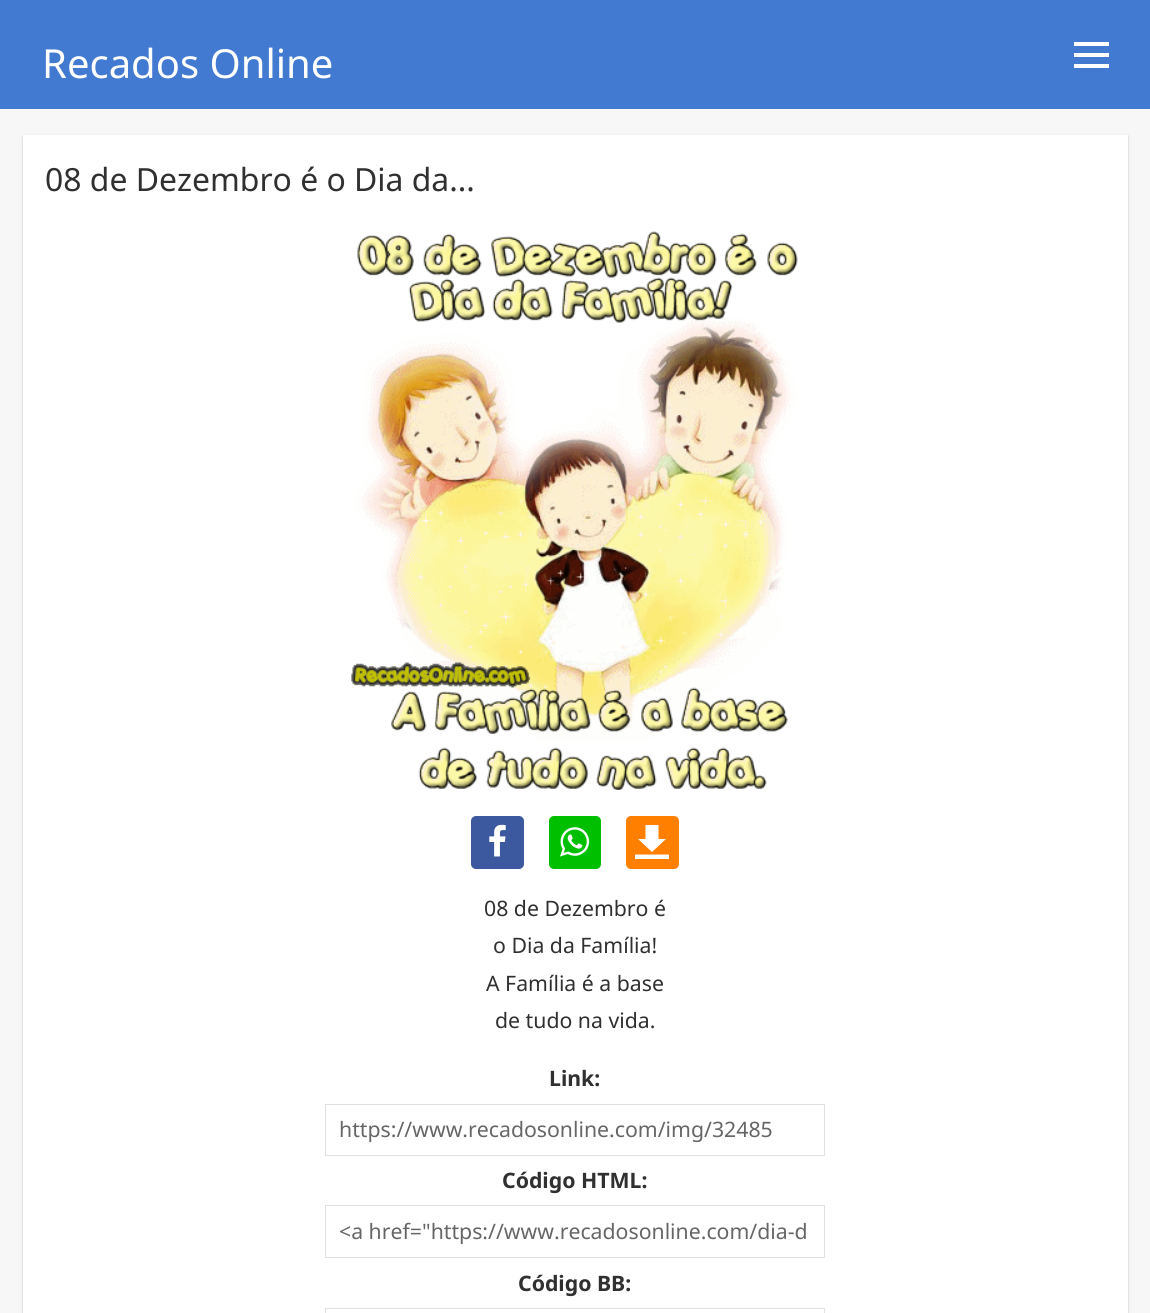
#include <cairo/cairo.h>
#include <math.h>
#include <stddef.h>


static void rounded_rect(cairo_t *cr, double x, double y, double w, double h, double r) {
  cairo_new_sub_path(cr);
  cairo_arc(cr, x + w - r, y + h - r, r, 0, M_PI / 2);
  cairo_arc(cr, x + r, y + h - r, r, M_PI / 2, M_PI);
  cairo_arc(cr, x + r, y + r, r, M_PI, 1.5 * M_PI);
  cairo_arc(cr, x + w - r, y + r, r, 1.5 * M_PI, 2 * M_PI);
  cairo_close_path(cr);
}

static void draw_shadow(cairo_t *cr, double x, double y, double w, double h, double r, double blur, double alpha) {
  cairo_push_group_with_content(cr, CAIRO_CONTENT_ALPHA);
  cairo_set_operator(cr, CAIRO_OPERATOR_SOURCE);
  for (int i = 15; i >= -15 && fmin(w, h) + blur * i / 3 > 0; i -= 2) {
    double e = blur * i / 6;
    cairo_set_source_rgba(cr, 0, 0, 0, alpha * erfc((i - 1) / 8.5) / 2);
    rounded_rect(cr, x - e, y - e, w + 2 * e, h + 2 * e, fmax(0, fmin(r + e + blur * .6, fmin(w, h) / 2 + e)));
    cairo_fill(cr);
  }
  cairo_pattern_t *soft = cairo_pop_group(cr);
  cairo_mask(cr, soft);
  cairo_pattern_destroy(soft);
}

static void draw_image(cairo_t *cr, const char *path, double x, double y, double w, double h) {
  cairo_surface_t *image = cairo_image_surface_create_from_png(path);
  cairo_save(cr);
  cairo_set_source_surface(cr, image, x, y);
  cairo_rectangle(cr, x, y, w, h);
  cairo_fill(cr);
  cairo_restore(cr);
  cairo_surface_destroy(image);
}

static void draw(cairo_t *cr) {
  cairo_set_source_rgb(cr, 247 / 255.0, 247 / 255.0, 247 / 255.0);
  cairo_paint(cr);
  cairo_set_source_rgb(cr, 66 / 255.0, 122 / 255.0, 209 / 255.0);
  cairo_rectangle(cr, 0, 0, 1150, 109);
  cairo_fill(cr);
  cairo_set_source_rgb(cr, 1, 1, 1);
  cairo_new_path(cr);
  cairo_move_to(cr, 1074, 68);
  cairo_line_to(cr, 1109, 68);
  cairo_line_to(cr, 1109, 64);
  cairo_line_to(cr, 1074, 64);
  cairo_close_path(cr);
  cairo_move_to(cr, 1074, 42);
  cairo_line_to(cr, 1074, 46);
  cairo_line_to(cr, 1109, 46);
  cairo_line_to(cr, 1109, 42);
  cairo_close_path(cr);
  cairo_move_to(cr, 1074, 57);
  cairo_line_to(cr, 1109, 57);
  cairo_line_to(cr, 1109, 53);
  cairo_line_to(cr, 1074, 53);
  cairo_close_path(cr);
  cairo_fill(cr);
  cairo_set_source_rgb(cr, 187 / 255.0, 187 / 255.0, 187 / 255.0);
  draw_shadow(cr, 23, 136, 1105, 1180, 0, 1, 1);
  cairo_set_source_rgb(cr, 1, 1, 1);
  cairo_rectangle(cr, 23, 135, 1105, 1178);
  cairo_fill(cr);
  draw_image(cr, "images/1.png", 351, 231, 447, 559);
  cairo_set_source_rgb(cr, 60 / 255.0, 89 / 255.0, 159 / 255.0);
  rounded_rect(cr, 471, 816, 53, 53, 5);
  cairo_fill(cr);
  draw_image(cr, "images/2.png", 489, 824, 17, 33);
  cairo_set_source_rgb(cr, 0, 190 / 255.0, 0);
  rounded_rect(cr, 549, 816, 52, 53, 5);
  cairo_fill(cr);
  draw_image(cr, "images/3.png", 560, 827, 30, 30);
  cairo_set_source_rgb(cr, 1, 128 / 255.0, 0);
  rounded_rect(cr, 626, 816, 53, 53, 5);
  cairo_fill(cr);
  cairo_set_source_rgb(cr, 1, 1, 1);
  cairo_new_path(cr);
  cairo_move_to(cr, 635, 859);
  cairo_line_to(cr, 635, 854.5);
  cairo_line_to(cr, 669, 854.5);
  cairo_line_to(cr, 669, 859);
  cairo_close_path(cr);
  cairo_move_to(cr, 638, 839);
  cairo_line_to(cr, 645.5, 839);
  cairo_line_to(cr, 645.5, 825);
  cairo_line_to(cr, 658.5, 825);
  cairo_line_to(cr, 658.5, 839);
  cairo_line_to(cr, 666, 839);
  cairo_line_to(cr, 652, 852);
  cairo_close_path(cr);
  cairo_fill(cr);
  cairo_rectangle(cr, 325.5, 1104.5, 499, 51);
  cairo_set_source_rgb(cr, 224 / 255.0, 224 / 255.0, 224 / 255.0);
  cairo_set_line_width(cr, 1);
  cairo_stroke(cr);
  cairo_rectangle(cr, 325.5, 1205.5, 499, 52);
  cairo_stroke(cr);
  cairo_rectangle(cr, 325.5, 1308.5, 499, 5);
  cairo_stroke(cr);
  cairo_select_font_face(cr, "Noto Sans", CAIRO_FONT_SLANT_NORMAL, CAIRO_FONT_WEIGHT_NORMAL);
  cairo_set_font_size(cr, 40);
  cairo_set_source_rgb(cr, 1, 1, 1);
  cairo_move_to(cr, 42, 78);
  cairo_show_text(cr, "Recados Online");
  cairo_set_font_size(cr, 31.9);
  cairo_set_source_rgb(cr, 48 / 255.0, 48 / 255.0, 48 / 255.0);
  cairo_move_to(cr, 45, 191);
  cairo_show_text(cr, "08 de Dezembro é o Dia da...");
  cairo_set_font_size(cr, 21.25);
  cairo_move_to(cr, 484, 916);
  cairo_show_text(cr, "08 de Dezembro é");
  cairo_move_to(cr, 493, 953);
  cairo_show_text(cr, "o Dia da Família!");
  cairo_move_to(cr, 486, 991);
  cairo_show_text(cr, "A Família é a base");
  cairo_move_to(cr, 495, 1028);
  cairo_show_text(cr, "de tudo na vida.");
  cairo_select_font_face(cr, "Noto Sans", CAIRO_FONT_SLANT_NORMAL, CAIRO_FONT_WEIGHT_BOLD);
  cairo_move_to(cr, 549, 1086);
  cairo_show_text(cr, "Link:");
  cairo_select_font_face(cr, "Noto Sans", CAIRO_FONT_SLANT_NORMAL, CAIRO_FONT_WEIGHT_NORMAL);
  cairo_set_source_rgb(cr, 102 / 255.0, 102 / 255.0, 102 / 255.0);
  cairo_move_to(cr, 339, 1137);
  cairo_show_text(cr, "https://www.recadosonline.com/img/32485");
  cairo_select_font_face(cr, "Noto Sans", CAIRO_FONT_SLANT_NORMAL, CAIRO_FONT_WEIGHT_BOLD);
  cairo_set_source_rgb(cr, 48 / 255.0, 48 / 255.0, 48 / 255.0);
  cairo_move_to(cr, 502, 1188);
  cairo_show_text(cr, "Código HTML:");
  cairo_select_font_face(cr, "Noto Sans", CAIRO_FONT_SLANT_NORMAL, CAIRO_FONT_WEIGHT_NORMAL);
  cairo_set_source_rgb(cr, 102 / 255.0, 102 / 255.0, 102 / 255.0);
  cairo_move_to(cr, 339, 1239);
  cairo_show_text(cr, "<a href=\"https://www.recadosonline.com/dia-d");
  cairo_select_font_face(cr, "Noto Sans", CAIRO_FONT_SLANT_NORMAL, CAIRO_FONT_WEIGHT_BOLD);
  cairo_set_source_rgb(cr, 48 / 255.0, 48 / 255.0, 48 / 255.0);
  cairo_move_to(cr, 518, 1291);
  cairo_show_text(cr, "Código BB:");
}

int main(void) {
  cairo_surface_t *surface = cairo_image_surface_create(CAIRO_FORMAT_RGB24, 1150, 1313);
  cairo_t *cr = cairo_create(surface);
  cairo_font_options_t *options = cairo_font_options_create();
  cairo_font_options_set_hint_metrics(options, CAIRO_HINT_METRICS_OFF);
  cairo_font_options_set_hint_style(options, CAIRO_HINT_STYLE_NONE);
  cairo_set_font_options(cr, options);
  cairo_set_miter_limit(cr, 4);
  draw(cr);
  cairo_surface_write_to_png(surface, "out.png");
  cairo_font_options_destroy(options);
  cairo_destroy(cr);
  cairo_surface_destroy(surface);
  return 0;
}
